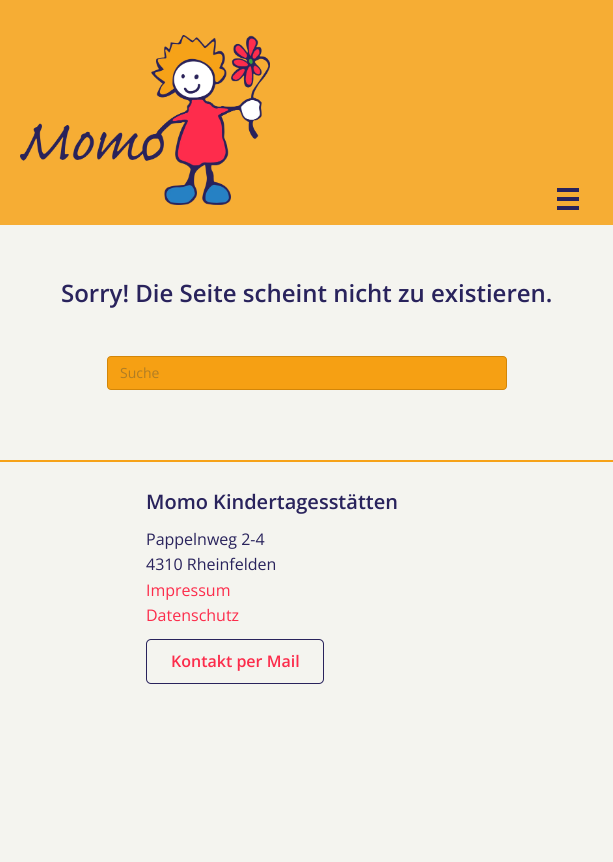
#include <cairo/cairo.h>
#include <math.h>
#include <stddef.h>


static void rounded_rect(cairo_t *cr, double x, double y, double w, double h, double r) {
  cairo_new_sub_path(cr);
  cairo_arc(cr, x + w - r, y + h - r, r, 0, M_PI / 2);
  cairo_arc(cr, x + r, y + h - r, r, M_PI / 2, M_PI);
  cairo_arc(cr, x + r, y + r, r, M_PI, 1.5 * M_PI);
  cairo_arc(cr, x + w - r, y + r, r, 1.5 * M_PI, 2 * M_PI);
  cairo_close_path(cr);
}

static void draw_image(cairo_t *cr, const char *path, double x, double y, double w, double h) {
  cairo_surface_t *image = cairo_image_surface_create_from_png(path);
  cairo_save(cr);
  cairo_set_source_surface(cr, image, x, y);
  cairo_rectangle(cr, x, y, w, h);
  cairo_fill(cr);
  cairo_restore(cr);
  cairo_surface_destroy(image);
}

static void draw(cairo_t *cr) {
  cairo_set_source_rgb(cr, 244 / 255.0, 244 / 255.0, 239 / 255.0);
  cairo_paint(cr);
  cairo_set_source_rgb(cr, 246 / 255.0, 173 / 255.0, 52 / 255.0);
  cairo_rectangle(cr, 0, 0, 613, 225);
  cairo_fill(cr);
  draw_image(cr, "images/1.png", 20, 35, 250, 170);
  cairo_set_source_rgb(cr, 41 / 255.0, 35 / 255.0, 92 / 255.0);
  cairo_rectangle(cr, 557, 188, 22, 4);
  cairo_fill(cr);
  cairo_rectangle(cr, 557, 197, 22, 4);
  cairo_fill(cr);
  cairo_rectangle(cr, 557, 206, 22, 4);
  cairo_fill(cr);
  cairo_set_source_rgb(cr, 246 / 255.0, 160 / 255.0, 19 / 255.0);
  rounded_rect(cr, 107.5, 356.5, 399, 33, 3.5);
  cairo_fill_preserve(cr);
  cairo_set_source_rgb(cr, 211 / 255.0, 134 / 255.0, 8 / 255.0);
  cairo_set_line_width(cr, 1);
  cairo_stroke(cr);
  cairo_set_source_rgb(cr, 246 / 255.0, 162 / 255.0, 24 / 255.0);
  cairo_rectangle(cr, 0, 460, 613, 2);
  cairo_fill(cr);
  rounded_rect(cr, 146.5, 639.5, 177, 44, 4.5);
  cairo_set_source_rgb(cr, 41 / 255.0, 35 / 255.0, 92 / 255.0);
  cairo_stroke(cr);
  cairo_select_font_face(cr, "Open Sans SemiBold", CAIRO_FONT_SLANT_NORMAL, CAIRO_FONT_WEIGHT_NORMAL);
  cairo_set_font_size(cr, 24);
  cairo_move_to(cr, 61, 302);
  cairo_show_text(cr, "Sorry! Die Seite scheint nicht zu existieren.");
  cairo_select_font_face(cr, "Open Sans", CAIRO_FONT_SLANT_NORMAL, CAIRO_FONT_WEIGHT_NORMAL);
  cairo_set_font_size(cr, 14);
  cairo_set_source_rgb(cr, 176 / 255.0, 125 / 255.0, 36 / 255.0);
  cairo_move_to(cr, 120, 378);
  cairo_show_text(cr, "Suche");
  cairo_select_font_face(cr, "Open Sans SemiBold", CAIRO_FONT_SLANT_NORMAL, CAIRO_FONT_WEIGHT_NORMAL);
  cairo_set_font_size(cr, 20);
  cairo_set_source_rgb(cr, 41 / 255.0, 35 / 255.0, 92 / 255.0);
  cairo_move_to(cr, 146, 509);
  cairo_show_text(cr, "Momo Kindertagesstätten");
  cairo_select_font_face(cr, "Open Sans", CAIRO_FONT_SLANT_NORMAL, CAIRO_FONT_WEIGHT_NORMAL);
  cairo_set_font_size(cr, 16);
  cairo_move_to(cr, 146, 545);
  cairo_show_text(cr, "Pappelnweg 2-4");
  cairo_move_to(cr, 146, 570);
  cairo_show_text(cr, "4310 Rheinfelden");
  cairo_set_source_rgb(cr, 252 / 255.0, 44 / 255.0, 75 / 255.0);
  cairo_move_to(cr, 146, 596);
  cairo_show_text(cr, "Impressum");
  cairo_move_to(cr, 146, 621);
  cairo_show_text(cr, "Datenschutz");
  cairo_select_font_face(cr, "Open Sans SemiBold", CAIRO_FONT_SLANT_NORMAL, CAIRO_FONT_WEIGHT_NORMAL);
  cairo_move_to(cr, 171, 667);
  cairo_show_text(cr, "Kontakt per Mail");
}

int main(void) {
  cairo_surface_t *surface = cairo_image_surface_create(CAIRO_FORMAT_RGB24, 613, 862);
  cairo_t *cr = cairo_create(surface);
  cairo_font_options_t *options = cairo_font_options_create();
  cairo_font_options_set_hint_metrics(options, CAIRO_HINT_METRICS_OFF);
  cairo_font_options_set_hint_style(options, CAIRO_HINT_STYLE_NONE);
  cairo_set_font_options(cr, options);
  cairo_set_miter_limit(cr, 4);
  draw(cr);
  cairo_surface_write_to_png(surface, "out.png");
  cairo_font_options_destroy(options);
  cairo_destroy(cr);
  cairo_surface_destroy(surface);
  return 0;
}
